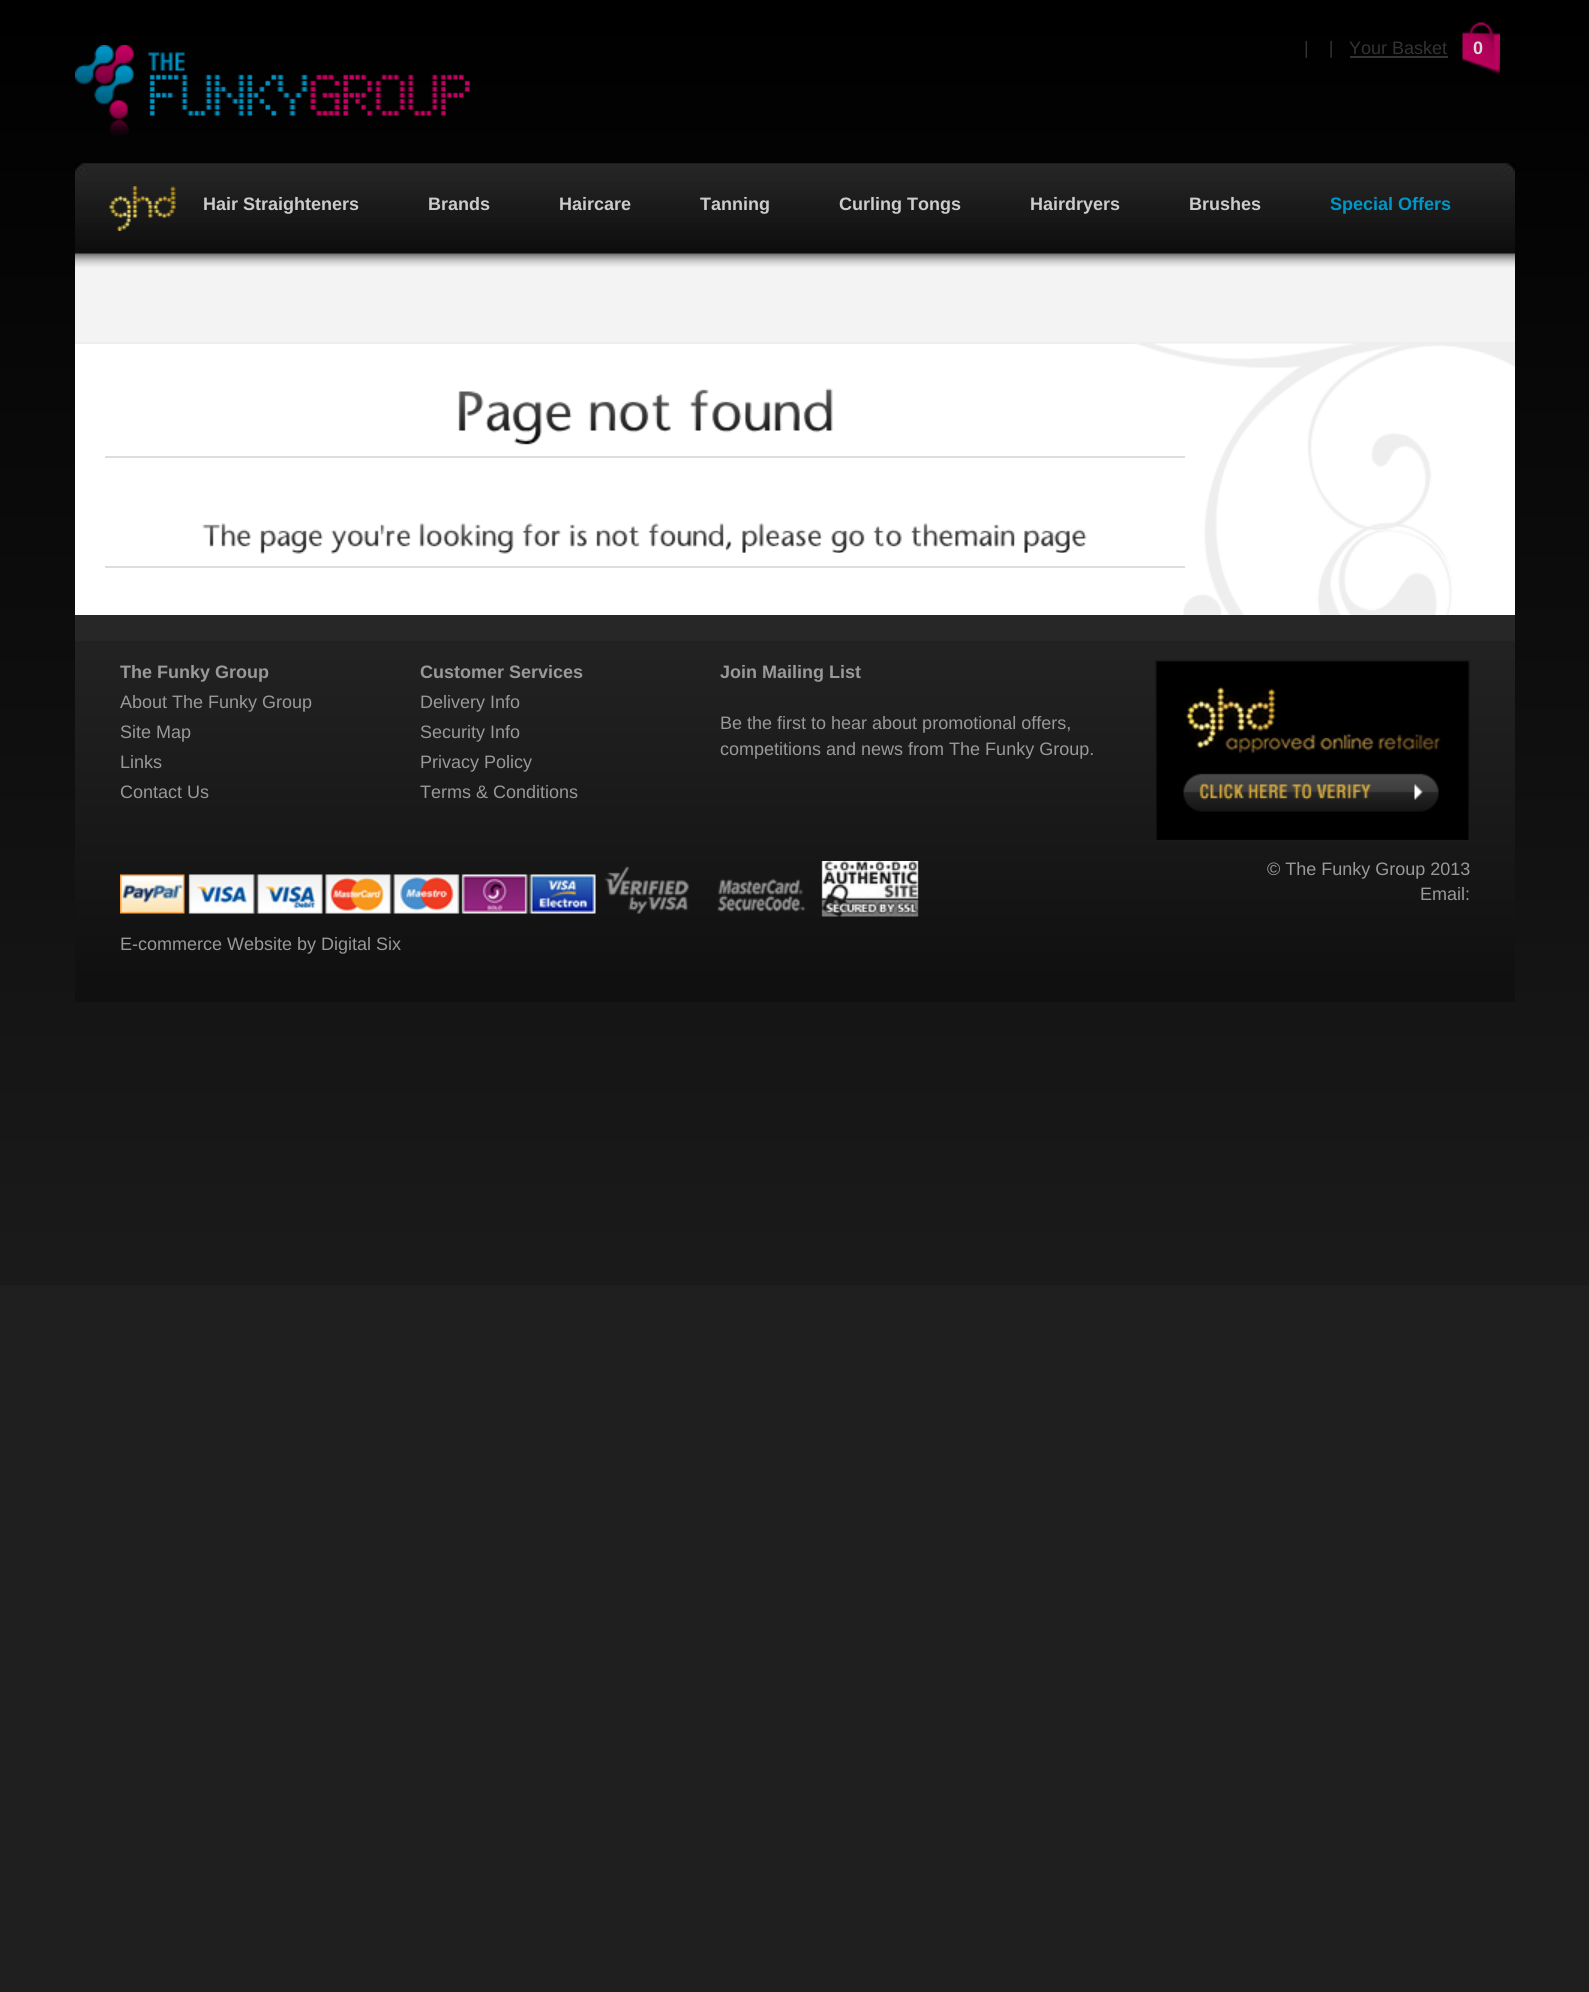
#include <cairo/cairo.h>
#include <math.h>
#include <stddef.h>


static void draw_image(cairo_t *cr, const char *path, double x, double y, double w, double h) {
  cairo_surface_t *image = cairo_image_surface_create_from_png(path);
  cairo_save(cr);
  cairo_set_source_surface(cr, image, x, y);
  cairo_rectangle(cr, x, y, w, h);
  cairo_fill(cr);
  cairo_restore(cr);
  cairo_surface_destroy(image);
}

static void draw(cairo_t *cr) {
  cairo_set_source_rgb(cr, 31 / 255.0, 31 / 255.0, 31 / 255.0);
  cairo_paint(cr);
  draw_image(cr, "images/1.png", 0, 0, 1589, 1285);
  draw_image(cr, "images/2.png", 75, 45, 395, 91);
  cairo_set_source_rgb(cr, 51 / 255.0, 51 / 255.0, 51 / 255.0);
  cairo_rectangle(cr, 1350, 56, 98, 2);
  cairo_fill(cr);
  draw_image(cr, "images/3.png", 1462, 22, 38, 53);
  draw_image(cr, "images/4.png", 75, 163, 1440, 91);
  draw_image(cr, "images/5.png", 75, 163, 1440, 91);
  draw_image(cr, "images/6.png", 109, 186, 67, 45);
  cairo_set_source_rgb(cr, 243 / 255.0, 243 / 255.0, 243 / 255.0);
  cairo_rectangle(cr, 75, 267, 1440, 75);
  cairo_fill(cr);
  draw_image(cr, "images/7.png", 75, 253, 1440, 14);
  cairo_set_source_rgb(cr, 238 / 255.0, 238 / 255.0, 238 / 255.0);
  cairo_rectangle(cr, 75, 342, 1440, 2);
  cairo_fill(cr);
  cairo_set_source_rgb(cr, 1, 1, 1);
  cairo_rectangle(cr, 75, 344, 1061, 271);
  cairo_fill(cr);
  draw_image(cr, "images/8.png", 1135, 343, 380, 272);
  cairo_set_source_rgb(cr, 221 / 255.0, 221 / 255.0, 221 / 255.0);
  cairo_rectangle(cr, 105, 456, 1080, 2);
  cairo_fill(cr);
  draw_image(cr, "images/9.png", 458, 391, 114, 54);
  draw_image(cr, "images/10.png", 589, 394, 82, 39);
  draw_image(cr, "images/11.png", 689, 388, 144, 45);
  cairo_rectangle(cr, 105, 566, 1080, 2);
  cairo_fill(cr);
  draw_image(cr, "images/12.png", 202, 523, 49, 24);
  draw_image(cr, "images/13.png", 260, 529, 63, 25);
  draw_image(cr, "images/14.png", 331, 524, 81, 30);
  draw_image(cr, "images/15.png", 419, 523, 95, 31);
  draw_image(cr, "images/16.png", 522, 523, 40, 24);
  draw_image(cr, "images/17.png", 569, 524, 18, 23);
  draw_image(cr, "images/18.png", 596, 526, 44, 21);
  draw_image(cr, "images/19.png", 648, 523, 85, 28);
  draw_image(cr, "images/20.png", 742, 523, 81, 30);
  draw_image(cr, "images/21.png", 831, 529, 34, 24);
  draw_image(cr, "images/22.png", 873, 526, 29, 21);
  draw_image(cr, "images/23.png", 910, 523, 43, 24);
  draw_image(cr, "images/24.png", 954, 524, 62, 23);
  draw_image(cr, "images/25.png", 1024, 529, 63, 24);
  cairo_set_source_rgb(cr, 39 / 255.0, 39 / 255.0, 39 / 255.0);
  cairo_rectangle(cr, 75, 615, 1440, 26);
  cairo_fill(cr);
  draw_image(cr, "images/26.png", 75, 641, 1440, 361);
  draw_image(cr, "images/27.png", 120, 861, 799, 56);
  draw_image(cr, "images/28.png", 1155, 660, 315, 180);
  cairo_select_font_face(cr, "Liberation Sans", CAIRO_FONT_SLANT_NORMAL, CAIRO_FONT_WEIGHT_NORMAL);
  cairo_set_font_size(cr, 18);
  cairo_set_source_rgb(cr, 51 / 255.0, 51 / 255.0, 51 / 255.0);
  cairo_move_to(cr, 1304, 54);
  cairo_show_text(cr, "|    |");
  cairo_move_to(cr, 1349, 54);
  cairo_show_text(cr, "Your Basket");
  cairo_select_font_face(cr, "Liberation Sans", CAIRO_FONT_SLANT_NORMAL, CAIRO_FONT_WEIGHT_BOLD);
  cairo_set_source_rgb(cr, 217 / 255.0, 217 / 255.0, 217 / 255.0);
  cairo_move_to(cr, 1473, 54);
  cairo_show_text(cr, "0");
  cairo_set_source_rgb(cr, 204 / 255.0, 204 / 255.0, 204 / 255.0);
  cairo_move_to(cr, 203, 210);
  cairo_show_text(cr, "Hair Straighteners");
  cairo_move_to(cr, 428, 210);
  cairo_show_text(cr, "Brands");
  cairo_move_to(cr, 559, 210);
  cairo_show_text(cr, "Haircare");
  cairo_move_to(cr, 700, 210);
  cairo_show_text(cr, "Tanning");
  cairo_move_to(cr, 839, 210);
  cairo_show_text(cr, "Curling Tongs");
  cairo_move_to(cr, 1030, 210);
  cairo_show_text(cr, "Hairdryers");
  cairo_move_to(cr, 1189, 210);
  cairo_show_text(cr, "Brushes");
  cairo_set_source_rgb(cr, 0, 150 / 255.0, 200 / 255.0);
  cairo_move_to(cr, 1330, 210);
  cairo_show_text(cr, "Special Offers");
  cairo_set_source_rgb(cr, 153 / 255.0, 153 / 255.0, 153 / 255.0);
  cairo_move_to(cr, 120, 678);
  cairo_show_text(cr, "The Funky Group");
  cairo_select_font_face(cr, "Liberation Sans", CAIRO_FONT_SLANT_NORMAL, CAIRO_FONT_WEIGHT_NORMAL);
  cairo_move_to(cr, 120, 708);
  cairo_show_text(cr, "About The Funky Group");
  cairo_move_to(cr, 120, 738);
  cairo_show_text(cr, "Site Map");
  cairo_move_to(cr, 120, 768);
  cairo_show_text(cr, "Links");
  cairo_move_to(cr, 120, 798);
  cairo_show_text(cr, "Contact Us");
  cairo_select_font_face(cr, "Liberation Sans", CAIRO_FONT_SLANT_NORMAL, CAIRO_FONT_WEIGHT_BOLD);
  cairo_move_to(cr, 420, 678);
  cairo_show_text(cr, "Customer Services");
  cairo_select_font_face(cr, "Liberation Sans", CAIRO_FONT_SLANT_NORMAL, CAIRO_FONT_WEIGHT_NORMAL);
  cairo_move_to(cr, 420, 708);
  cairo_show_text(cr, "Delivery Info");
  cairo_move_to(cr, 420, 738);
  cairo_show_text(cr, "Security Info");
  cairo_move_to(cr, 420, 768);
  cairo_show_text(cr, "Privacy Policy");
  cairo_move_to(cr, 420, 798);
  cairo_show_text(cr, "Terms & Conditions");
  cairo_select_font_face(cr, "Liberation Sans", CAIRO_FONT_SLANT_NORMAL, CAIRO_FONT_WEIGHT_BOLD);
  cairo_move_to(cr, 720, 678);
  cairo_show_text(cr, "Join Mailing List");
  cairo_select_font_face(cr, "Liberation Sans", CAIRO_FONT_SLANT_NORMAL, CAIRO_FONT_WEIGHT_NORMAL);
  cairo_move_to(cr, 720, 729);
  cairo_show_text(cr, "Be the first to hear about promotional offers,");
  cairo_move_to(cr, 720, 755);
  cairo_show_text(cr, "competitions and news from The Funky Group.");
  cairo_move_to(cr, 120, 950);
  cairo_show_text(cr, "E-commerce Website by Digital Six");
  cairo_move_to(cr, 1267, 875);
  cairo_show_text(cr, "© The Funky Group 2013");
  cairo_move_to(cr, 1420, 900);
  cairo_show_text(cr, "Email:");
}

int main(void) {
  cairo_surface_t *surface = cairo_image_surface_create(CAIRO_FORMAT_RGB24, 1589, 1992);
  cairo_t *cr = cairo_create(surface);
  cairo_font_options_t *options = cairo_font_options_create();
  cairo_font_options_set_hint_metrics(options, CAIRO_HINT_METRICS_OFF);
  cairo_font_options_set_hint_style(options, CAIRO_HINT_STYLE_NONE);
  cairo_set_font_options(cr, options);
  cairo_set_miter_limit(cr, 4);
  draw(cr);
  cairo_surface_write_to_png(surface, "out.png");
  cairo_font_options_destroy(options);
  cairo_destroy(cr);
  cairo_surface_destroy(surface);
  return 0;
}
